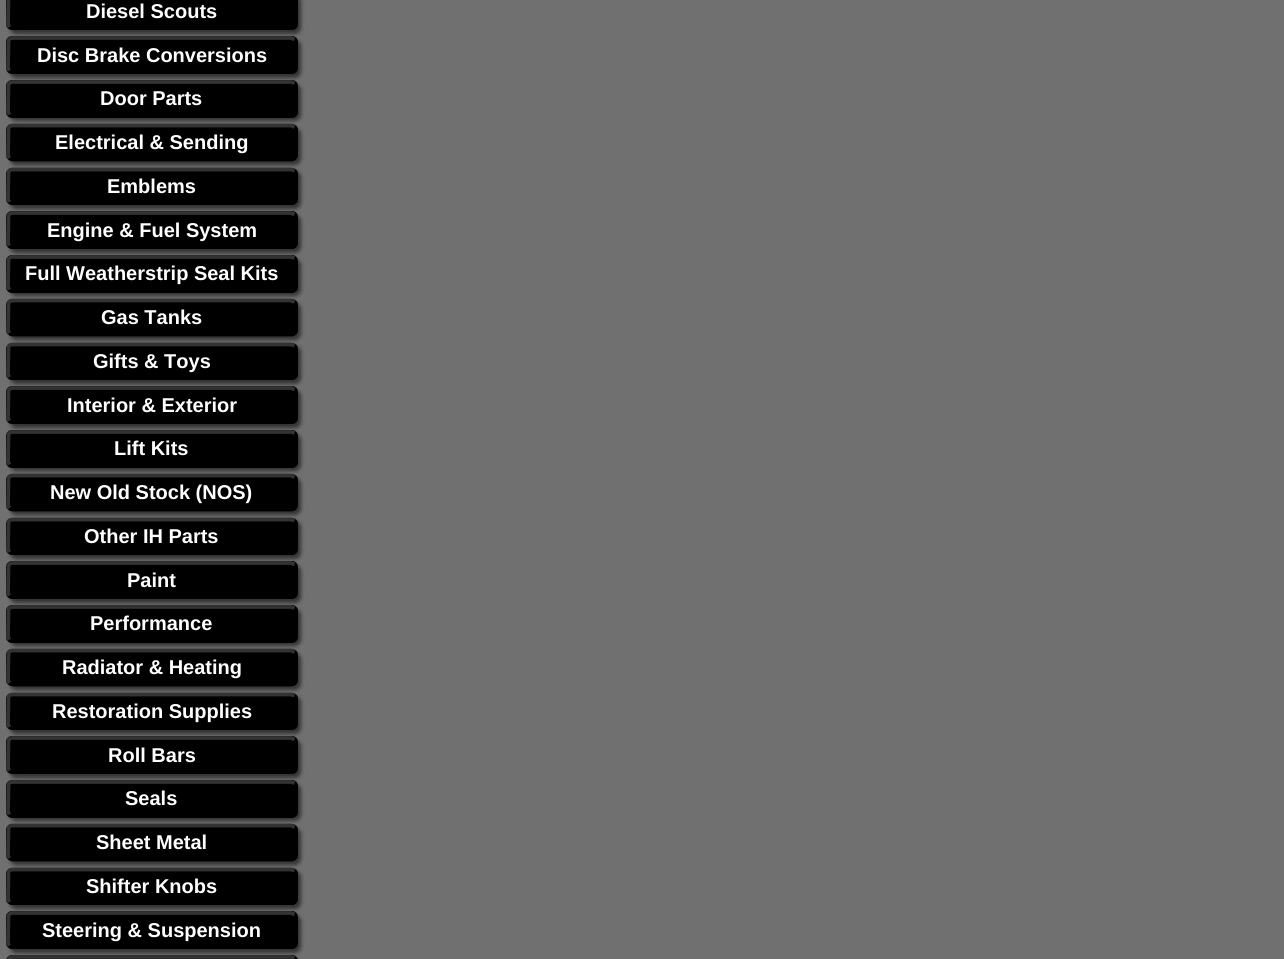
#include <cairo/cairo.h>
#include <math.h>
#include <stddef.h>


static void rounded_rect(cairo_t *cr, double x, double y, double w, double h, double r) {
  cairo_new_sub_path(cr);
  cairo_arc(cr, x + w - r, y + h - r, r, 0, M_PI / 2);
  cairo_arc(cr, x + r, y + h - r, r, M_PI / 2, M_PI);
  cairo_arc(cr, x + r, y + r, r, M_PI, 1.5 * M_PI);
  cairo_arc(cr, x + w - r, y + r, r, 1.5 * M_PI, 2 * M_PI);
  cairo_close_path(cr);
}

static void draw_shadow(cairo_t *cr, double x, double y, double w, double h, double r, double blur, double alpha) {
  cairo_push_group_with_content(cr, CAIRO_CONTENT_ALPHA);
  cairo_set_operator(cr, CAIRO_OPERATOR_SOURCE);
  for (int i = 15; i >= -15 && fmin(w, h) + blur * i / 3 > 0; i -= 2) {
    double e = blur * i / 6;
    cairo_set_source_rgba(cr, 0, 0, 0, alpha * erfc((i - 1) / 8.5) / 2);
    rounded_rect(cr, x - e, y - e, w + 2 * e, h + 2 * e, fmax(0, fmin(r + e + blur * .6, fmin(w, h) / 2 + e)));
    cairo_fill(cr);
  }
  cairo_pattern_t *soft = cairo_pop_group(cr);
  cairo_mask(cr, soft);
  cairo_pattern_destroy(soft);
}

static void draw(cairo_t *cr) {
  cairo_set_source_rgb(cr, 112 / 255.0, 112 / 255.0, 112 / 255.0);
  cairo_paint(cr);
  cairo_set_source_rgb(cr, 51 / 255.0, 51 / 255.0, 51 / 255.0);
  draw_shadow(cr, 10, -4, 291, 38, 6, 2, 1);
  cairo_set_source_rgb(cr, 0, 0, 0);
  rounded_rect(cr, 6, -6, 292, 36, 6);
  cairo_fill(cr);
  cairo_new_path(cr);
  cairo_move_to(cr, 294.5, -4.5);
  cairo_line_to(cr, 295.5, -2);
  cairo_line_to(cr, 295.5, 25.5);
  cairo_curve_to(cr, 294.5, 27, 293, 28, 291, 28);
  cairo_line_to(cr, 12.5, 28);
  cairo_line_to(cr, 9.5, 27);
  cairo_set_line_width(cr, 3.8);
  cairo_stroke(cr);
  cairo_new_path(cr);
  cairo_move_to(cr, 9.5, 27);
  cairo_line_to(cr, 8, 24.5);
  cairo_line_to(cr, 8.5, -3);
  cairo_curve_to(cr, 9, -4.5, 10.5, -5.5, 12.5, -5.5);
  cairo_line_to(cr, 291, -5.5);
  cairo_line_to(cr, 294.5, -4.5);
  cairo_set_source_rgb(cr, 51 / 255.0, 51 / 255.0, 51 / 255.0);
  cairo_stroke(cr);
  cairo_set_source_rgb(cr, 51 / 255.0, 51 / 255.0, 51 / 255.0);
  draw_shadow(cr, 10, 40, 291, 38, 6, 2, 1);
  cairo_set_source_rgb(cr, 0, 0, 0);
  rounded_rect(cr, 6, 36, 292, 38, 6);
  cairo_fill(cr);
  cairo_new_path(cr);
  cairo_move_to(cr, 294.5, 39.5);
  cairo_line_to(cr, 295.5, 41.5);
  cairo_line_to(cr, 295.5, 69);
  cairo_curve_to(cr, 294.5, 71, 293, 72, 291, 72);
  cairo_line_to(cr, 12.5, 72);
  cairo_line_to(cr, 9.5, 70.5);
  cairo_stroke(cr);
  cairo_new_path(cr);
  cairo_move_to(cr, 9.5, 70.5);
  cairo_line_to(cr, 8, 68.5);
  cairo_line_to(cr, 8.5, 41);
  cairo_curve_to(cr, 9, 39, 10.5, 38, 12.5, 38);
  cairo_line_to(cr, 291, 38);
  cairo_line_to(cr, 294.5, 39.5);
  cairo_set_source_rgb(cr, 51 / 255.0, 51 / 255.0, 51 / 255.0);
  cairo_stroke(cr);
  cairo_set_source_rgb(cr, 51 / 255.0, 51 / 255.0, 51 / 255.0);
  draw_shadow(cr, 10, 84, 291, 37, 6, 2, 1);
  cairo_set_source_rgb(cr, 0, 0, 0);
  rounded_rect(cr, 6, 80, 292, 38, 6);
  cairo_fill(cr);
  cairo_new_path(cr);
  cairo_move_to(cr, 294.5, 83);
  cairo_line_to(cr, 295.5, 85.5);
  cairo_line_to(cr, 295.5, 113);
  cairo_curve_to(cr, 294.5, 114.5, 293, 115.5, 291, 115.5);
  cairo_line_to(cr, 12.5, 115.5);
  cairo_line_to(cr, 9.5, 114.5);
  cairo_stroke(cr);
  cairo_new_path(cr);
  cairo_move_to(cr, 9.5, 114.5);
  cairo_line_to(cr, 8, 112);
  cairo_line_to(cr, 8.5, 84.5);
  cairo_curve_to(cr, 9, 83, 10.5, 82, 12.5, 82);
  cairo_line_to(cr, 291, 82);
  cairo_line_to(cr, 294.5, 83);
  cairo_set_source_rgb(cr, 51 / 255.0, 51 / 255.0, 51 / 255.0);
  cairo_stroke(cr);
  cairo_set_source_rgb(cr, 51 / 255.0, 51 / 255.0, 51 / 255.0);
  draw_shadow(cr, 10, 128, 291, 37, 6, 2, 1);
  cairo_set_source_rgb(cr, 0, 0, 0);
  rounded_rect(cr, 6, 124, 292, 37, 6);
  cairo_fill(cr);
  cairo_new_path(cr);
  cairo_move_to(cr, 294.5, 127);
  cairo_line_to(cr, 295.5, 129);
  cairo_line_to(cr, 295.5, 156.5);
  cairo_curve_to(cr, 294.5, 158.5, 293, 159.5, 291, 159.5);
  cairo_line_to(cr, 12.5, 159.5);
  cairo_line_to(cr, 9.5, 158);
  cairo_stroke(cr);
  cairo_new_path(cr);
  cairo_move_to(cr, 9.5, 158);
  cairo_line_to(cr, 8, 156);
  cairo_line_to(cr, 8.5, 128.5);
  cairo_curve_to(cr, 9, 126.5, 10.5, 125.5, 12.5, 125.5);
  cairo_line_to(cr, 291, 125.5);
  cairo_line_to(cr, 294.5, 127);
  cairo_set_source_rgb(cr, 51 / 255.0, 51 / 255.0, 51 / 255.0);
  cairo_stroke(cr);
  cairo_set_source_rgb(cr, 51 / 255.0, 51 / 255.0, 51 / 255.0);
  draw_shadow(cr, 10, 171, 291, 38, 6, 2, 1);
  cairo_set_source_rgb(cr, 0, 0, 0);
  rounded_rect(cr, 6, 168, 292, 37, 6);
  cairo_fill(cr);
  cairo_new_path(cr);
  cairo_move_to(cr, 294.5, 170.5);
  cairo_line_to(cr, 295.5, 173);
  cairo_line_to(cr, 295.5, 200.5);
  cairo_curve_to(cr, 294.5, 202, 293, 203, 291, 203);
  cairo_line_to(cr, 12.5, 203);
  cairo_line_to(cr, 9.5, 202);
  cairo_stroke(cr);
  cairo_new_path(cr);
  cairo_move_to(cr, 9.5, 202);
  cairo_line_to(cr, 8, 199.5);
  cairo_line_to(cr, 8.5, 172);
  cairo_curve_to(cr, 9, 170.5, 10.5, 169.5, 12.5, 169.5);
  cairo_line_to(cr, 291, 169.5);
  cairo_line_to(cr, 294.5, 170.5);
  cairo_set_source_rgb(cr, 51 / 255.0, 51 / 255.0, 51 / 255.0);
  cairo_stroke(cr);
  cairo_set_source_rgb(cr, 51 / 255.0, 51 / 255.0, 51 / 255.0);
  draw_shadow(cr, 10, 215, 291, 38, 6, 2, 1);
  cairo_set_source_rgb(cr, 0, 0, 0);
  rounded_rect(cr, 6, 211, 292, 38, 6);
  cairo_fill(cr);
  cairo_new_path(cr);
  cairo_move_to(cr, 294.5, 214.5);
  cairo_line_to(cr, 295.5, 216.5);
  cairo_line_to(cr, 295.5, 244);
  cairo_curve_to(cr, 294.5, 246, 293, 247, 291, 247);
  cairo_line_to(cr, 12.5, 247);
  cairo_line_to(cr, 9.5, 245.5);
  cairo_stroke(cr);
  cairo_new_path(cr);
  cairo_move_to(cr, 9.5, 245.5);
  cairo_line_to(cr, 8, 243.5);
  cairo_line_to(cr, 8.5, 216);
  cairo_curve_to(cr, 9, 214, 10.5, 213, 12.5, 213);
  cairo_line_to(cr, 291, 213);
  cairo_line_to(cr, 294.5, 214.5);
  cairo_set_source_rgb(cr, 51 / 255.0, 51 / 255.0, 51 / 255.0);
  cairo_stroke(cr);
  cairo_set_source_rgb(cr, 51 / 255.0, 51 / 255.0, 51 / 255.0);
  draw_shadow(cr, 10, 259, 291, 37, 6, 2, 1);
  cairo_set_source_rgb(cr, 0, 0, 0);
  rounded_rect(cr, 6, 255, 292, 38, 6);
  cairo_fill(cr);
  cairo_new_path(cr);
  cairo_move_to(cr, 294.5, 258);
  cairo_line_to(cr, 295.5, 260.5);
  cairo_line_to(cr, 295.5, 288);
  cairo_curve_to(cr, 294.5, 289.5, 293, 290.5, 291, 290.5);
  cairo_line_to(cr, 12.5, 290.5);
  cairo_line_to(cr, 9.5, 289.5);
  cairo_stroke(cr);
  cairo_new_path(cr);
  cairo_move_to(cr, 9.5, 289.5);
  cairo_line_to(cr, 8, 287);
  cairo_line_to(cr, 8.5, 259.5);
  cairo_curve_to(cr, 9, 258, 10.5, 257, 12.5, 257);
  cairo_line_to(cr, 291, 257);
  cairo_line_to(cr, 294.5, 258);
  cairo_set_source_rgb(cr, 51 / 255.0, 51 / 255.0, 51 / 255.0);
  cairo_stroke(cr);
  cairo_set_source_rgb(cr, 51 / 255.0, 51 / 255.0, 51 / 255.0);
  draw_shadow(cr, 10, 303, 291, 37, 6, 2, 1);
  cairo_set_source_rgb(cr, 0, 0, 0);
  rounded_rect(cr, 6, 299, 292, 37, 6);
  cairo_fill(cr);
  cairo_new_path(cr);
  cairo_move_to(cr, 294.5, 302);
  cairo_line_to(cr, 295.5, 304);
  cairo_line_to(cr, 295.5, 331.5);
  cairo_curve_to(cr, 294.5, 333.5, 293, 334.5, 291, 334.5);
  cairo_line_to(cr, 12.5, 334.5);
  cairo_line_to(cr, 9.5, 333);
  cairo_stroke(cr);
  cairo_new_path(cr);
  cairo_move_to(cr, 9.5, 333);
  cairo_line_to(cr, 8, 331);
  cairo_line_to(cr, 8.5, 303.5);
  cairo_curve_to(cr, 9, 301.5, 10.5, 300.5, 12.5, 300.5);
  cairo_line_to(cr, 291, 300.5);
  cairo_line_to(cr, 294.5, 302);
  cairo_set_source_rgb(cr, 51 / 255.0, 51 / 255.0, 51 / 255.0);
  cairo_stroke(cr);
  cairo_set_source_rgb(cr, 51 / 255.0, 51 / 255.0, 51 / 255.0);
  draw_shadow(cr, 10, 346, 291, 38, 6, 2, 1);
  cairo_set_source_rgb(cr, 0, 0, 0);
  rounded_rect(cr, 6, 343, 292, 37, 6);
  cairo_fill(cr);
  cairo_new_path(cr);
  cairo_move_to(cr, 294.5, 345.5);
  cairo_line_to(cr, 295.5, 348);
  cairo_line_to(cr, 295.5, 375.5);
  cairo_curve_to(cr, 294.5, 377, 293, 378, 291, 378);
  cairo_line_to(cr, 12.5, 378);
  cairo_line_to(cr, 9.5, 377);
  cairo_stroke(cr);
  cairo_new_path(cr);
  cairo_move_to(cr, 9.5, 377);
  cairo_line_to(cr, 8, 374.5);
  cairo_line_to(cr, 8.5, 347);
  cairo_curve_to(cr, 9, 345.5, 10.5, 344.5, 12.5, 344.5);
  cairo_line_to(cr, 291, 344.5);
  cairo_line_to(cr, 294.5, 345.5);
  cairo_set_source_rgb(cr, 51 / 255.0, 51 / 255.0, 51 / 255.0);
  cairo_stroke(cr);
  cairo_set_source_rgb(cr, 51 / 255.0, 51 / 255.0, 51 / 255.0);
  draw_shadow(cr, 10, 390, 291, 38, 6, 2, 1);
  cairo_set_source_rgb(cr, 0, 0, 0);
  rounded_rect(cr, 6, 386, 292, 38, 6);
  cairo_fill(cr);
  cairo_new_path(cr);
  cairo_move_to(cr, 294.5, 389.5);
  cairo_line_to(cr, 295.5, 391.5);
  cairo_line_to(cr, 295.5, 419);
  cairo_curve_to(cr, 294.5, 421, 293, 422, 291, 422);
  cairo_line_to(cr, 12.5, 422);
  cairo_line_to(cr, 9.5, 420.5);
  cairo_stroke(cr);
  cairo_new_path(cr);
  cairo_move_to(cr, 9.5, 420.5);
  cairo_line_to(cr, 8, 418.5);
  cairo_line_to(cr, 8.5, 391);
  cairo_curve_to(cr, 9, 389, 10.5, 388, 12.5, 388);
  cairo_line_to(cr, 291, 388);
  cairo_line_to(cr, 294.5, 389.5);
  cairo_set_source_rgb(cr, 51 / 255.0, 51 / 255.0, 51 / 255.0);
  cairo_stroke(cr);
  cairo_set_source_rgb(cr, 51 / 255.0, 51 / 255.0, 51 / 255.0);
  draw_shadow(cr, 10, 434, 291, 37, 6, 2, 1);
  cairo_set_source_rgb(cr, 0, 0, 0);
  rounded_rect(cr, 6, 430, 292, 38, 6);
  cairo_fill(cr);
  cairo_new_path(cr);
  cairo_move_to(cr, 294.5, 433);
  cairo_line_to(cr, 295.5, 435.5);
  cairo_line_to(cr, 295.5, 463);
  cairo_curve_to(cr, 294.5, 464.5, 293, 465.5, 291, 465.5);
  cairo_line_to(cr, 12.5, 465.5);
  cairo_line_to(cr, 9.5, 464.5);
  cairo_stroke(cr);
  cairo_new_path(cr);
  cairo_move_to(cr, 9.5, 464.5);
  cairo_line_to(cr, 8, 462);
  cairo_line_to(cr, 8.5, 434.5);
  cairo_curve_to(cr, 9, 433, 10.5, 432, 12.5, 432);
  cairo_line_to(cr, 291, 432);
  cairo_line_to(cr, 294.5, 433);
  cairo_set_source_rgb(cr, 51 / 255.0, 51 / 255.0, 51 / 255.0);
  cairo_stroke(cr);
  cairo_set_source_rgb(cr, 51 / 255.0, 51 / 255.0, 51 / 255.0);
  draw_shadow(cr, 10, 478, 291, 37, 6, 2, 1);
  cairo_set_source_rgb(cr, 0, 0, 0);
  rounded_rect(cr, 6, 474, 292, 37, 6);
  cairo_fill(cr);
  cairo_new_path(cr);
  cairo_move_to(cr, 294.5, 477);
  cairo_line_to(cr, 295.5, 479);
  cairo_line_to(cr, 295.5, 506.5);
  cairo_curve_to(cr, 294.5, 508.5, 293, 509.5, 291, 509.5);
  cairo_line_to(cr, 12.5, 509.5);
  cairo_line_to(cr, 9.5, 508);
  cairo_stroke(cr);
  cairo_new_path(cr);
  cairo_move_to(cr, 9.5, 508);
  cairo_line_to(cr, 8, 506);
  cairo_line_to(cr, 8.5, 478.5);
  cairo_curve_to(cr, 9, 476.5, 10.5, 475.5, 12.5, 475.5);
  cairo_line_to(cr, 291, 475.5);
  cairo_line_to(cr, 294.5, 477);
  cairo_set_source_rgb(cr, 51 / 255.0, 51 / 255.0, 51 / 255.0);
  cairo_stroke(cr);
  cairo_set_source_rgb(cr, 51 / 255.0, 51 / 255.0, 51 / 255.0);
  draw_shadow(cr, 10, 521, 291, 38, 6, 2, 1);
  cairo_set_source_rgb(cr, 0, 0, 0);
  rounded_rect(cr, 6, 518, 292, 37, 6);
  cairo_fill(cr);
  cairo_new_path(cr);
  cairo_move_to(cr, 294.5, 520.5);
  cairo_line_to(cr, 295.5, 523);
  cairo_line_to(cr, 295.5, 550.5);
  cairo_curve_to(cr, 294.5, 552, 293, 553, 291, 553);
  cairo_line_to(cr, 12.5, 553);
  cairo_line_to(cr, 9.5, 552);
  cairo_stroke(cr);
  cairo_new_path(cr);
  cairo_move_to(cr, 9.5, 552);
  cairo_line_to(cr, 8, 549.5);
  cairo_line_to(cr, 8.5, 522);
  cairo_curve_to(cr, 9, 520.5, 10.5, 519.5, 12.5, 519.5);
  cairo_line_to(cr, 291, 519.5);
  cairo_line_to(cr, 294.5, 520.5);
  cairo_set_source_rgb(cr, 51 / 255.0, 51 / 255.0, 51 / 255.0);
  cairo_stroke(cr);
  cairo_set_source_rgb(cr, 51 / 255.0, 51 / 255.0, 51 / 255.0);
  draw_shadow(cr, 10, 565, 291, 38, 6, 2, 1);
  cairo_set_source_rgb(cr, 0, 0, 0);
  rounded_rect(cr, 6, 561, 292, 38, 6);
  cairo_fill(cr);
  cairo_new_path(cr);
  cairo_move_to(cr, 294.5, 564.5);
  cairo_line_to(cr, 295.5, 566.5);
  cairo_line_to(cr, 295.5, 594);
  cairo_curve_to(cr, 294.5, 596, 293, 597, 291, 597);
  cairo_line_to(cr, 12.5, 597);
  cairo_line_to(cr, 9.5, 595.5);
  cairo_stroke(cr);
  cairo_new_path(cr);
  cairo_move_to(cr, 9.5, 595.5);
  cairo_line_to(cr, 8, 593.5);
  cairo_line_to(cr, 8.5, 566);
  cairo_curve_to(cr, 9, 564, 10.5, 563, 12.5, 563);
  cairo_line_to(cr, 291, 563);
  cairo_line_to(cr, 294.5, 564.5);
  cairo_set_source_rgb(cr, 51 / 255.0, 51 / 255.0, 51 / 255.0);
  cairo_stroke(cr);
  cairo_set_source_rgb(cr, 51 / 255.0, 51 / 255.0, 51 / 255.0);
  draw_shadow(cr, 10, 609, 291, 37, 6, 2, 1);
  cairo_set_source_rgb(cr, 0, 0, 0);
  rounded_rect(cr, 6, 605, 292, 38, 6);
  cairo_fill(cr);
  cairo_new_path(cr);
  cairo_move_to(cr, 294.5, 608);
  cairo_line_to(cr, 295.5, 610.5);
  cairo_line_to(cr, 295.5, 638);
  cairo_curve_to(cr, 294.5, 639.5, 293, 640.5, 291, 640.5);
  cairo_line_to(cr, 12.5, 640.5);
  cairo_line_to(cr, 9.5, 639.5);
  cairo_stroke(cr);
  cairo_new_path(cr);
  cairo_move_to(cr, 9.5, 639.5);
  cairo_line_to(cr, 8, 637);
  cairo_line_to(cr, 8.5, 609.5);
  cairo_curve_to(cr, 9, 608, 10.5, 607, 12.5, 607);
  cairo_line_to(cr, 291, 607);
  cairo_line_to(cr, 294.5, 608);
  cairo_set_source_rgb(cr, 51 / 255.0, 51 / 255.0, 51 / 255.0);
  cairo_stroke(cr);
  cairo_set_source_rgb(cr, 51 / 255.0, 51 / 255.0, 51 / 255.0);
  draw_shadow(cr, 10, 653, 291, 37, 6, 2, 1);
  cairo_set_source_rgb(cr, 0, 0, 0);
  rounded_rect(cr, 6, 649, 292, 37, 6);
  cairo_fill(cr);
  cairo_new_path(cr);
  cairo_move_to(cr, 294.5, 652);
  cairo_line_to(cr, 295.5, 654);
  cairo_line_to(cr, 295.5, 681.5);
  cairo_curve_to(cr, 294.5, 683.5, 293, 684.5, 291, 684.5);
  cairo_line_to(cr, 12.5, 684.5);
  cairo_line_to(cr, 9.5, 683);
  cairo_stroke(cr);
  cairo_new_path(cr);
  cairo_move_to(cr, 9.5, 683);
  cairo_line_to(cr, 8, 681);
  cairo_line_to(cr, 8.5, 653.5);
  cairo_curve_to(cr, 9, 651.5, 10.5, 650.5, 12.5, 650.5);
  cairo_line_to(cr, 291, 650.5);
  cairo_line_to(cr, 294.5, 652);
  cairo_set_source_rgb(cr, 51 / 255.0, 51 / 255.0, 51 / 255.0);
  cairo_stroke(cr);
  cairo_set_source_rgb(cr, 51 / 255.0, 51 / 255.0, 51 / 255.0);
  draw_shadow(cr, 10, 696, 291, 38, 6, 2, 1);
  cairo_set_source_rgb(cr, 0, 0, 0);
  rounded_rect(cr, 6, 693, 292, 37, 6);
  cairo_fill(cr);
  cairo_new_path(cr);
  cairo_move_to(cr, 294.5, 695.5);
  cairo_line_to(cr, 295.5, 698);
  cairo_line_to(cr, 295.5, 725.5);
  cairo_curve_to(cr, 294.5, 727, 293, 728, 291, 728);
  cairo_line_to(cr, 12.5, 728);
  cairo_line_to(cr, 9.5, 727);
  cairo_stroke(cr);
  cairo_new_path(cr);
  cairo_move_to(cr, 9.5, 727);
  cairo_line_to(cr, 8, 724.5);
  cairo_line_to(cr, 8.5, 697);
  cairo_curve_to(cr, 9, 695.5, 10.5, 694.5, 12.5, 694.5);
  cairo_line_to(cr, 291, 694.5);
  cairo_line_to(cr, 294.5, 695.5);
  cairo_set_source_rgb(cr, 51 / 255.0, 51 / 255.0, 51 / 255.0);
  cairo_stroke(cr);
  cairo_set_source_rgb(cr, 51 / 255.0, 51 / 255.0, 51 / 255.0);
  draw_shadow(cr, 10, 740, 291, 38, 6, 2, 1);
  cairo_set_source_rgb(cr, 0, 0, 0);
  rounded_rect(cr, 6, 736, 292, 38, 6);
  cairo_fill(cr);
  cairo_new_path(cr);
  cairo_move_to(cr, 294.5, 739.5);
  cairo_line_to(cr, 295.5, 741.5);
  cairo_line_to(cr, 295.5, 769);
  cairo_curve_to(cr, 294.5, 771, 293, 772, 291, 772);
  cairo_line_to(cr, 12.5, 772);
  cairo_line_to(cr, 9.5, 770.5);
  cairo_stroke(cr);
  cairo_new_path(cr);
  cairo_move_to(cr, 9.5, 770.5);
  cairo_line_to(cr, 8, 768.5);
  cairo_line_to(cr, 8.5, 741);
  cairo_curve_to(cr, 9, 739, 10.5, 738, 12.5, 738);
  cairo_line_to(cr, 291, 738);
  cairo_line_to(cr, 294.5, 739.5);
  cairo_set_source_rgb(cr, 51 / 255.0, 51 / 255.0, 51 / 255.0);
  cairo_stroke(cr);
  cairo_set_source_rgb(cr, 51 / 255.0, 51 / 255.0, 51 / 255.0);
  draw_shadow(cr, 10, 784, 291, 37, 6, 2, 1);
  cairo_set_source_rgb(cr, 0, 0, 0);
  rounded_rect(cr, 6, 780, 292, 38, 6);
  cairo_fill(cr);
  cairo_new_path(cr);
  cairo_move_to(cr, 294.5, 783);
  cairo_line_to(cr, 295.5, 785.5);
  cairo_line_to(cr, 295.5, 813);
  cairo_curve_to(cr, 294.5, 814.5, 293, 815.5, 291, 815.5);
  cairo_line_to(cr, 12.5, 815.5);
  cairo_line_to(cr, 9.5, 814.5);
  cairo_stroke(cr);
  cairo_new_path(cr);
  cairo_move_to(cr, 9.5, 814.5);
  cairo_line_to(cr, 8, 812);
  cairo_line_to(cr, 8.5, 784.5);
  cairo_curve_to(cr, 9, 783, 10.5, 782, 12.5, 782);
  cairo_line_to(cr, 291, 782);
  cairo_line_to(cr, 294.5, 783);
  cairo_set_source_rgb(cr, 51 / 255.0, 51 / 255.0, 51 / 255.0);
  cairo_stroke(cr);
  cairo_set_source_rgb(cr, 51 / 255.0, 51 / 255.0, 51 / 255.0);
  draw_shadow(cr, 10, 828, 291, 37, 6, 2, 1);
  cairo_set_source_rgb(cr, 0, 0, 0);
  rounded_rect(cr, 6, 824, 292, 37, 6);
  cairo_fill(cr);
  cairo_new_path(cr);
  cairo_move_to(cr, 294.5, 827);
  cairo_line_to(cr, 295.5, 829);
  cairo_line_to(cr, 295.5, 856.5);
  cairo_curve_to(cr, 294.5, 858.5, 293, 859.5, 291, 859.5);
  cairo_line_to(cr, 12.5, 859.5);
  cairo_line_to(cr, 9.5, 858);
  cairo_stroke(cr);
  cairo_new_path(cr);
  cairo_move_to(cr, 9.5, 858);
  cairo_line_to(cr, 8, 856);
  cairo_line_to(cr, 8.5, 828.5);
  cairo_curve_to(cr, 9, 826.5, 10.5, 825.5, 12.5, 825.5);
  cairo_line_to(cr, 291, 825.5);
  cairo_line_to(cr, 294.5, 827);
  cairo_set_source_rgb(cr, 51 / 255.0, 51 / 255.0, 51 / 255.0);
  cairo_stroke(cr);
  cairo_set_source_rgb(cr, 51 / 255.0, 51 / 255.0, 51 / 255.0);
  draw_shadow(cr, 10, 871, 291, 38, 6, 2, 1);
  cairo_set_source_rgb(cr, 0, 0, 0);
  rounded_rect(cr, 6, 868, 292, 37, 6);
  cairo_fill(cr);
  cairo_new_path(cr);
  cairo_move_to(cr, 294.5, 870.5);
  cairo_line_to(cr, 295.5, 873);
  cairo_line_to(cr, 295.5, 900.5);
  cairo_curve_to(cr, 294.5, 902, 293, 903, 291, 903);
  cairo_line_to(cr, 12.5, 903);
  cairo_line_to(cr, 9.5, 902);
  cairo_stroke(cr);
  cairo_new_path(cr);
  cairo_move_to(cr, 9.5, 902);
  cairo_line_to(cr, 8, 899.5);
  cairo_line_to(cr, 8.5, 872);
  cairo_curve_to(cr, 9, 870.5, 10.5, 869.5, 12.5, 869.5);
  cairo_line_to(cr, 291, 869.5);
  cairo_line_to(cr, 294.5, 870.5);
  cairo_set_source_rgb(cr, 51 / 255.0, 51 / 255.0, 51 / 255.0);
  cairo_stroke(cr);
  cairo_set_source_rgb(cr, 51 / 255.0, 51 / 255.0, 51 / 255.0);
  draw_shadow(cr, 10, 915, 291, 38, 6, 2, 1);
  cairo_set_source_rgb(cr, 0, 0, 0);
  rounded_rect(cr, 6, 911, 292, 38, 6);
  cairo_fill(cr);
  cairo_new_path(cr);
  cairo_move_to(cr, 294.5, 914.5);
  cairo_line_to(cr, 295.5, 916.5);
  cairo_line_to(cr, 295.5, 944);
  cairo_curve_to(cr, 294.5, 946, 293, 947, 291, 947);
  cairo_line_to(cr, 12.5, 947);
  cairo_line_to(cr, 9.5, 945.5);
  cairo_stroke(cr);
  cairo_new_path(cr);
  cairo_move_to(cr, 9.5, 945.5);
  cairo_line_to(cr, 8, 943.5);
  cairo_line_to(cr, 8.5, 916);
  cairo_curve_to(cr, 9, 914, 10.5, 913, 12.5, 913);
  cairo_line_to(cr, 291, 913);
  cairo_line_to(cr, 294.5, 914.5);
  cairo_set_source_rgb(cr, 51 / 255.0, 51 / 255.0, 51 / 255.0);
  cairo_stroke(cr);
  cairo_set_source_rgb(cr, 51 / 255.0, 51 / 255.0, 51 / 255.0);
  draw_shadow(cr, 10, 959, 291, 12, 6, 2, 1);
  cairo_set_source_rgb(cr, 0, 0, 0);
  rounded_rect(cr, 6, 955, 292, 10, 6);
  cairo_fill(cr);
  cairo_new_path(cr);
  cairo_move_to(cr, 294.5, 958);
  cairo_line_to(cr, 295.5, 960.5);
  cairo_line_to(cr, 295.5, 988);
  cairo_curve_to(cr, 294.5, 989.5, 293, 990.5, 291, 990.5);
  cairo_line_to(cr, 12.5, 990.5);
  cairo_line_to(cr, 9.5, 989.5);
  cairo_stroke(cr);
  cairo_new_path(cr);
  cairo_move_to(cr, 9.5, 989.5);
  cairo_line_to(cr, 8, 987);
  cairo_line_to(cr, 8.5, 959.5);
  cairo_curve_to(cr, 9, 958, 10.5, 957, 12.5, 957);
  cairo_line_to(cr, 291, 957);
  cairo_line_to(cr, 294.5, 958);
  cairo_set_source_rgb(cr, 51 / 255.0, 51 / 255.0, 51 / 255.0);
  cairo_stroke(cr);
  cairo_select_font_face(cr, "Liberation Sans", CAIRO_FONT_SLANT_NORMAL, CAIRO_FONT_WEIGHT_BOLD);
  cairo_set_font_size(cr, 20);
  cairo_set_source_rgb(cr, 1, 1, 1);
  cairo_move_to(cr, 86, 18);
  cairo_show_text(cr, "Diesel Scouts");
  cairo_move_to(cr, 37, 62);
  cairo_show_text(cr, "Disc Brake Conversions");
  cairo_move_to(cr, 100, 105);
  cairo_show_text(cr, "Door Parts");
  cairo_move_to(cr, 55, 149);
  cairo_show_text(cr, "Electrical & Sending");
  cairo_move_to(cr, 107, 193);
  cairo_show_text(cr, "Emblems");
  cairo_move_to(cr, 47, 237);
  cairo_show_text(cr, "Engine & Fuel System");
  cairo_move_to(cr, 25, 280);
  cairo_show_text(cr, "Full Weatherstrip Seal Kits");
  cairo_move_to(cr, 101, 324);
  cairo_show_text(cr, "Gas Tanks");
  cairo_move_to(cr, 93, 368);
  cairo_show_text(cr, "Gifts & Toys");
  cairo_move_to(cr, 67, 412);
  cairo_show_text(cr, "Interior & Exterior");
  cairo_move_to(cr, 114, 455);
  cairo_show_text(cr, "Lift Kits");
  cairo_move_to(cr, 50, 499);
  cairo_show_text(cr, "New Old Stock (NOS)");
  cairo_move_to(cr, 84, 543);
  cairo_show_text(cr, "Other IH Parts");
  cairo_move_to(cr, 127, 587);
  cairo_show_text(cr, "Paint");
  cairo_move_to(cr, 90, 630);
  cairo_show_text(cr, "Performance");
  cairo_move_to(cr, 62, 674);
  cairo_show_text(cr, "Radiator & Heating");
  cairo_move_to(cr, 52, 718);
  cairo_show_text(cr, "Restoration Supplies");
  cairo_move_to(cr, 108, 762);
  cairo_show_text(cr, "Roll Bars");
  cairo_move_to(cr, 125, 805);
  cairo_show_text(cr, "Seals");
  cairo_move_to(cr, 96, 849);
  cairo_show_text(cr, "Sheet Metal");
  cairo_move_to(cr, 86, 893);
  cairo_show_text(cr, "Shifter Knobs");
  cairo_move_to(cr, 42, 937);
  cairo_show_text(cr, "Steering & Suspension");
}

int main(void) {
  cairo_surface_t *surface = cairo_image_surface_create(CAIRO_FORMAT_RGB24, 1284, 959);
  cairo_t *cr = cairo_create(surface);
  cairo_font_options_t *options = cairo_font_options_create();
  cairo_font_options_set_hint_metrics(options, CAIRO_HINT_METRICS_OFF);
  cairo_font_options_set_hint_style(options, CAIRO_HINT_STYLE_NONE);
  cairo_set_font_options(cr, options);
  cairo_set_miter_limit(cr, 4);
  draw(cr);
  cairo_surface_write_to_png(surface, "out.png");
  cairo_font_options_destroy(options);
  cairo_destroy(cr);
  cairo_surface_destroy(surface);
  return 0;
}
